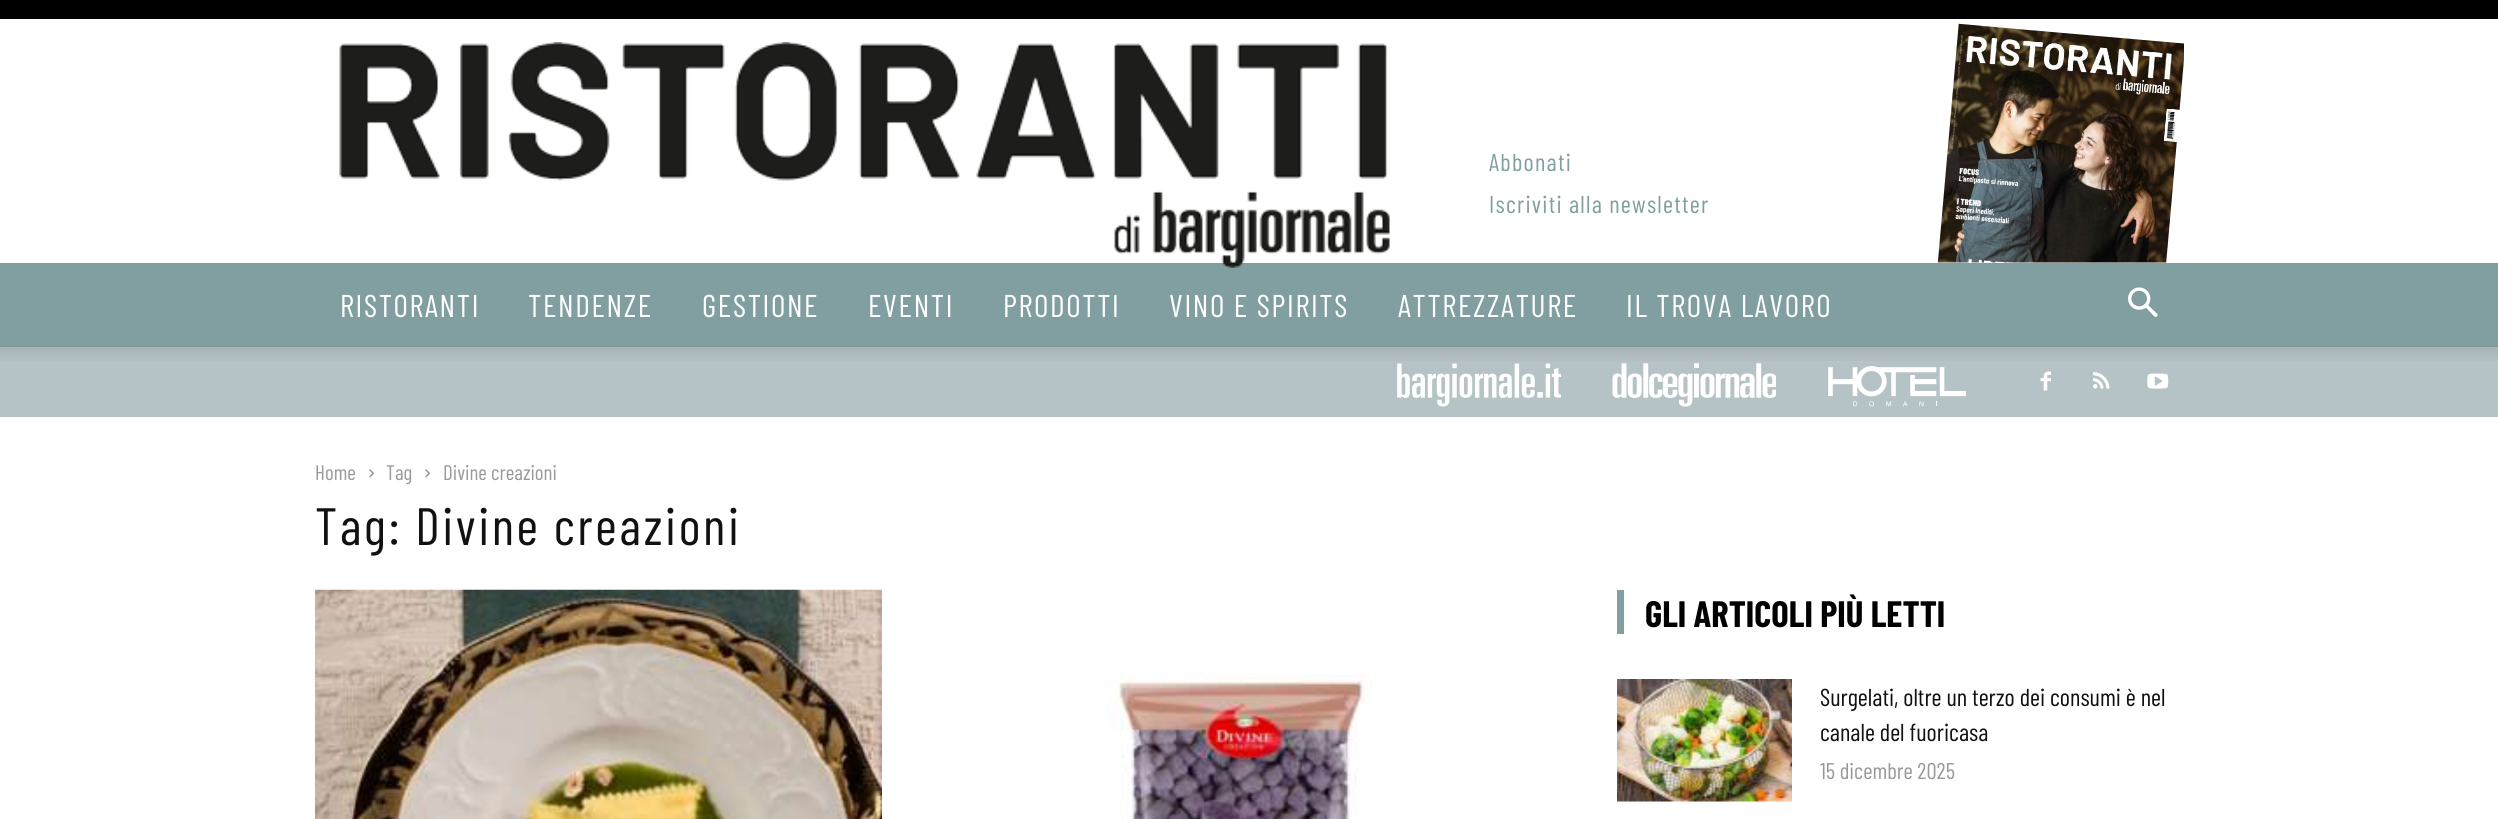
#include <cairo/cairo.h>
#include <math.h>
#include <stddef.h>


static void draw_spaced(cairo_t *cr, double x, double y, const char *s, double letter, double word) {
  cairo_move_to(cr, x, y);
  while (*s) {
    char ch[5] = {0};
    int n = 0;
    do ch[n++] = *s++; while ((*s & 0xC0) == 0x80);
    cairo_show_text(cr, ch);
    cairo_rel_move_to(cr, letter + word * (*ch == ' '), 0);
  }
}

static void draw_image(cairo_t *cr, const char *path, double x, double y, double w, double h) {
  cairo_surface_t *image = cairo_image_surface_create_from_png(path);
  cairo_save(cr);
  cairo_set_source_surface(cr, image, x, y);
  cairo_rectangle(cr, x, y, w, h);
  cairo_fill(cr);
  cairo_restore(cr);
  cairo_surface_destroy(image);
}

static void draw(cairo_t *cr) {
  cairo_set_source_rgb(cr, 1, 1, 1);
  cairo_paint(cr);
  cairo_set_source_rgb(cr, 0, 0, 0);
  cairo_rectangle(cr, 0, 0, 2498, 19);
  cairo_fill(cr);
  cairo_set_source_rgb(cr, 129 / 255.0, 158 / 255.0, 161 / 255.0);
  cairo_rectangle(cr, 0, 263, 2498, 84);
  cairo_fill(cr);
  draw_image(cr, "images/1.png", 339, 42, 1051, 226);
  draw_image(cr, "images/2.png", 1937, 23, 247, 240);
  draw_image(cr, "images/3.png", 2128, 287, 30, 30);
  cairo_set_source_rgb(cr, 182 / 255.0, 195 / 255.0, 198 / 255.0);
  cairo_rectangle(cr, 0, 347, 2498, 70);
  cairo_fill(cr);
  draw_image(cr, "images/4.png", 0, 346, 2498, 15);
  draw_image(cr, "images/5.png", 1397, 363, 164, 44);
  draw_image(cr, "images/6.png", 1612, 363, 164, 44);
  draw_image(cr, "images/7.png", 1828, 366, 138, 41);
  draw_image(cr, "images/8.png", 2040, 371, 11, 20);
  draw_image(cr, "images/9.png", 2093, 372, 17, 17);
  draw_image(cr, "images/10.png", 2147, 373, 22, 16);
  draw_image(cr, "images/11.png", 369, 469, 5, 9);
  draw_image(cr, "images/11.png", 425, 469, 5, 9);
  draw_image(cr, "images/12.png", 315, 589, 567, 230);
  draw_image(cr, "images/13.png", 1106, 673, 266, 146);
  cairo_set_source_rgb(cr, 129 / 255.0, 158 / 255.0, 161 / 255.0);
  cairo_rectangle(cr, 1617, 590, 7, 44);
  cairo_fill(cr);
  draw_image(cr, "images/14.png", 1617, 679, 175, 123);
  cairo_select_font_face(cr, "Barlow Condensed", CAIRO_FONT_SLANT_NORMAL, CAIRO_FONT_WEIGHT_NORMAL);
  cairo_set_font_size(cr, 24.5);
  draw_spaced(cr, 1489, 171, "Abbonati", 1.25, 0);
  draw_spaced(cr, 1489, 213, "Iscriviti alla newsletter", 1.25, 0);
  cairo_set_font_size(cr, 31.5);
  cairo_set_source_rgb(cr, 1, 1, 1);
  draw_spaced(cr, 340, 317, "RISTORANTI", 1.6, 0);
  draw_spaced(cr, 528, 317, "TENDENZE", 1.6, 0);
  draw_spaced(cr, 702, 317, "GESTIONE", 1.6, 0);
  draw_spaced(cr, 868, 317, "EVENTI", 1.6, 0);
  draw_spaced(cr, 1003, 317, "PRODOTTI", 1.6, 0);
  draw_spaced(cr, 1169, 317, "VINO E SPIRITS", 1.6, 0);
  draw_spaced(cr, 1398, 317, "ATTREZZATURE", 1.6, 0);
  draw_spaced(cr, 1626, 317, "IL TROVA LAVORO", 1.6, 0);
  cairo_set_font_size(cr, 21);
  cairo_set_source_rgb(cr, 153 / 255.0, 153 / 255.0, 153 / 255.0);
  cairo_move_to(cr, 315, 480);
  cairo_show_text(cr, "Home");
  cairo_move_to(cr, 386, 480);
  cairo_show_text(cr, "Tag");
  cairo_move_to(cr, 443, 480);
  cairo_show_text(cr, "Divine creazioni");
  cairo_set_font_size(cr, 52.5);
  cairo_set_source_rgb(cr, 17 / 255.0, 17 / 255.0, 17 / 255.0);
  draw_spaced(cr, 315, 545, "Tag: Divine creazioni", 2.6, 0);
  cairo_select_font_face(cr, "Barlow Condensed", CAIRO_FONT_SLANT_NORMAL, CAIRO_FONT_WEIGHT_BOLD);
  cairo_set_font_size(cr, 36.75);
  cairo_set_source_rgb(cr, 0, 0, 0);
  cairo_move_to(cr, 1645, 627);
  cairo_show_text(cr, "GLI ARTICOLI PIÙ LETTI");
  cairo_select_font_face(cr, "Barlow Condensed", CAIRO_FONT_SLANT_NORMAL, CAIRO_FONT_WEIGHT_NORMAL);
  cairo_set_font_size(cr, 24.5);
  cairo_set_source_rgb(cr, 17 / 255.0, 17 / 255.0, 17 / 255.0);
  cairo_move_to(cr, 1820, 706);
  cairo_show_text(cr, "Surgelati, oltre un terzo dei consumi è nel");
  cairo_move_to(cr, 1820, 741);
  cairo_show_text(cr, "canale del fuoricasa");
  cairo_set_font_size(cr, 22.75);
  cairo_set_source_rgb(cr, 153 / 255.0, 153 / 255.0, 153 / 255.0);
  cairo_move_to(cr, 1820, 779);
  cairo_show_text(cr, "15 dicembre 2025");
}

int main(void) {
  cairo_surface_t *surface = cairo_image_surface_create(CAIRO_FORMAT_RGB24, 2498, 819);
  cairo_t *cr = cairo_create(surface);
  cairo_font_options_t *options = cairo_font_options_create();
  cairo_font_options_set_hint_metrics(options, CAIRO_HINT_METRICS_OFF);
  cairo_font_options_set_hint_style(options, CAIRO_HINT_STYLE_NONE);
  cairo_set_font_options(cr, options);
  cairo_set_miter_limit(cr, 4);
  draw(cr);
  cairo_surface_write_to_png(surface, "out.png");
  cairo_font_options_destroy(options);
  cairo_destroy(cr);
  cairo_surface_destroy(surface);
  return 0;
}
